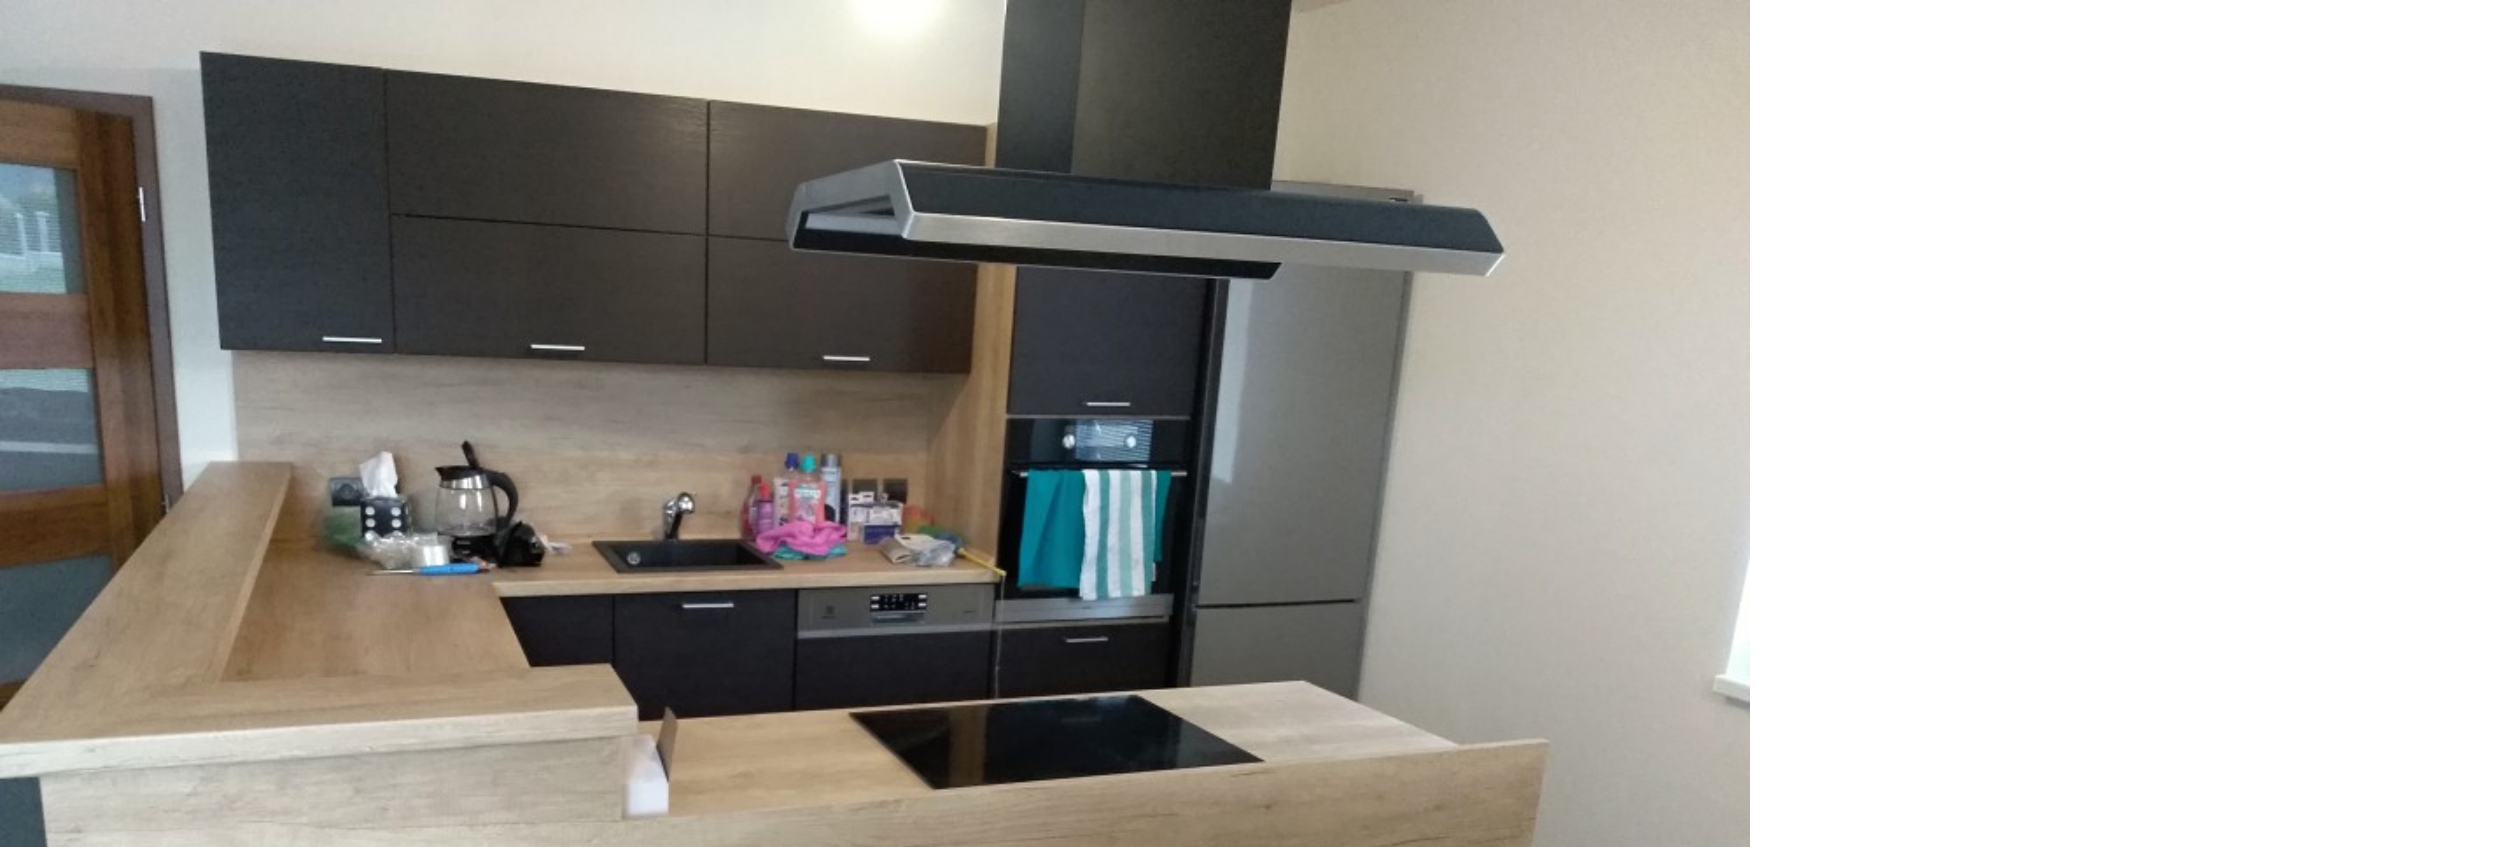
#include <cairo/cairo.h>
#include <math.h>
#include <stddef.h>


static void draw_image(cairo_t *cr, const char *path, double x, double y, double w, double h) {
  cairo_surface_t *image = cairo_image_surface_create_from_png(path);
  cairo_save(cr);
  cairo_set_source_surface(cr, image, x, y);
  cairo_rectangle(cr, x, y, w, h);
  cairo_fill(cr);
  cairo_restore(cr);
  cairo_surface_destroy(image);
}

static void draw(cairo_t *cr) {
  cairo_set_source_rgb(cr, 1, 1, 1);
  cairo_paint(cr);
  draw_image(cr, "images/1.png", 0, 0, 1750, 847);
}

int main(void) {
  cairo_surface_t *surface = cairo_image_surface_create(CAIRO_FORMAT_RGB24, 2493, 847);
  cairo_t *cr = cairo_create(surface);
  cairo_font_options_t *options = cairo_font_options_create();
  cairo_font_options_set_hint_metrics(options, CAIRO_HINT_METRICS_OFF);
  cairo_font_options_set_hint_style(options, CAIRO_HINT_STYLE_NONE);
  cairo_set_font_options(cr, options);
  cairo_set_miter_limit(cr, 4);
  draw(cr);
  cairo_surface_write_to_png(surface, "out.png");
  cairo_font_options_destroy(options);
  cairo_destroy(cr);
  cairo_surface_destroy(surface);
  return 0;
}
